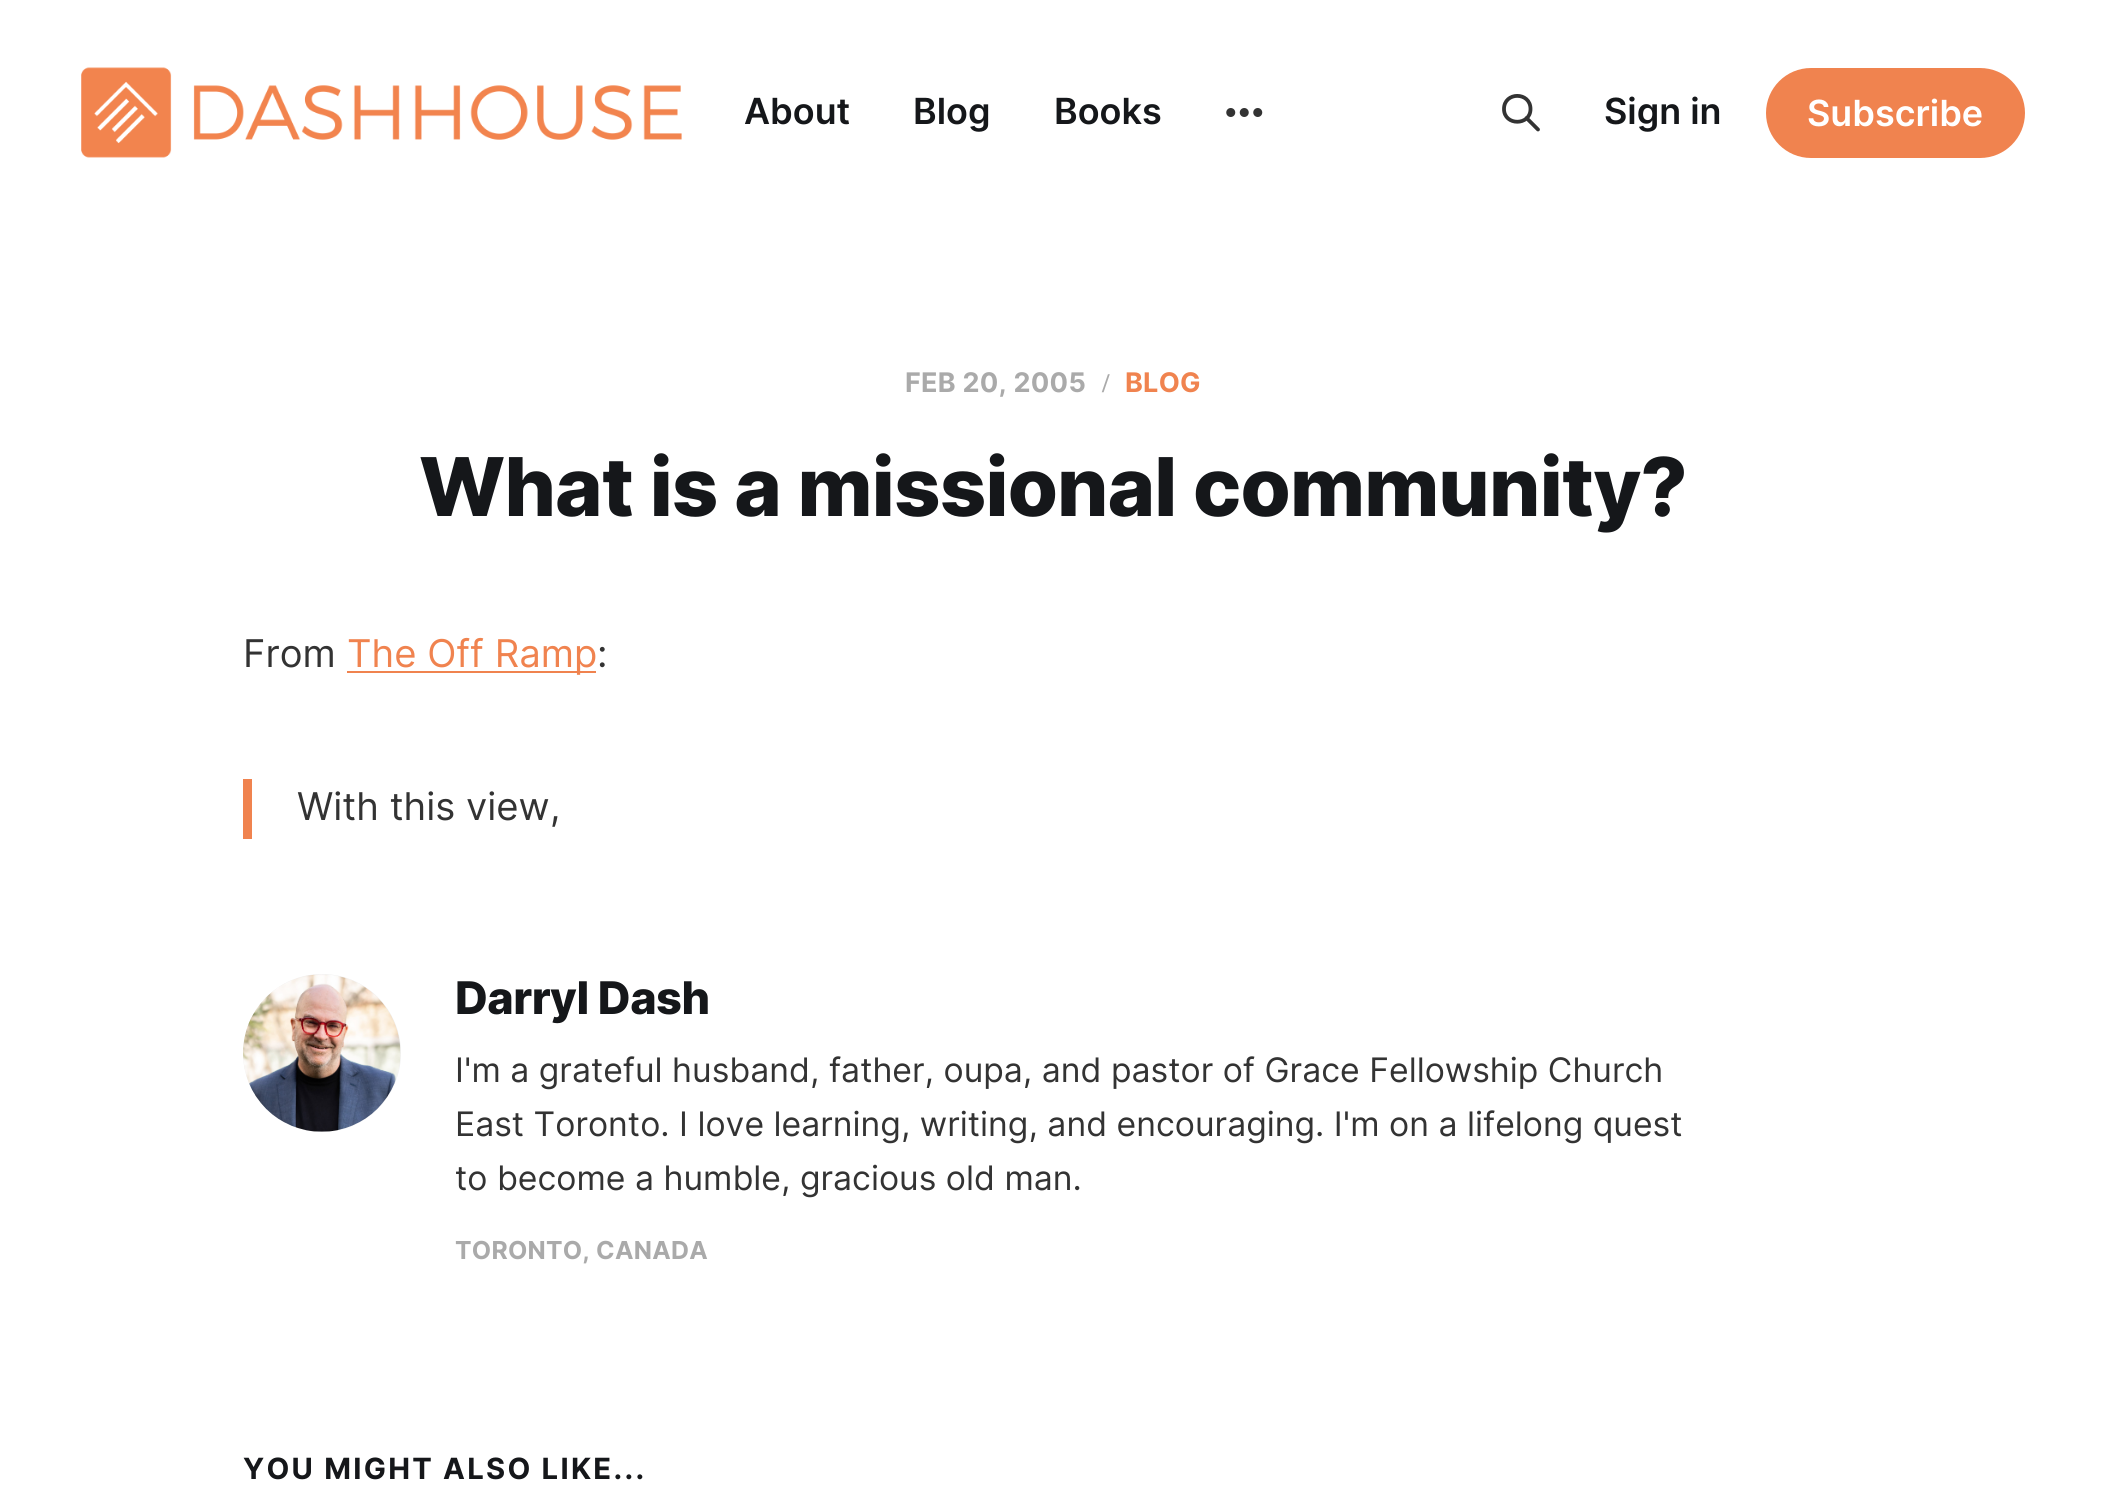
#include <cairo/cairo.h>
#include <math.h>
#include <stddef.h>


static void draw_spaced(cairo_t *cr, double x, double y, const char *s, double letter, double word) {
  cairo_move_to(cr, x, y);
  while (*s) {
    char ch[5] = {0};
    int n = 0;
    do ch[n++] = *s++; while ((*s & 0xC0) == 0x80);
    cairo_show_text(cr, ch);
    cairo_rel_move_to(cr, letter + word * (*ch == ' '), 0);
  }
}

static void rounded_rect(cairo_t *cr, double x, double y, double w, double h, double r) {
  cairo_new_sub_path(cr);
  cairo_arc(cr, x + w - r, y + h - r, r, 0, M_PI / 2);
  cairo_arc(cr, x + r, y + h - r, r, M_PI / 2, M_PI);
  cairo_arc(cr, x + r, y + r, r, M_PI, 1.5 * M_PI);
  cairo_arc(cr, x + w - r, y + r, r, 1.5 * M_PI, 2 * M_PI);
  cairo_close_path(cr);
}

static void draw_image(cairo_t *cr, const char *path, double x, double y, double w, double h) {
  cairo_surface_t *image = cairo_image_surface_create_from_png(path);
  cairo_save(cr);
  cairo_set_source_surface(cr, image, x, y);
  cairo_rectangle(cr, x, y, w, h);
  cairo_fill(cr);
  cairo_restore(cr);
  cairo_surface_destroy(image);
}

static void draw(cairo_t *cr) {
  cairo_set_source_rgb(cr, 1, 1, 1);
  cairo_paint(cr);
  draw_image(cr, "images/1.png", 81, 67, 601, 91);
  draw_image(cr, "images/2.png", 1226, 108, 37, 9);
  cairo_new_path(cr);
  cairo_move_to(cr, 1538, 129.5);
  cairo_line_to(cr, 1526.5, 118);
  cairo_move_to(cr, 1530.5, 109);
  cairo_curve_to(cr, 1530.5, 126, 1504, 126, 1504, 109);
  cairo_curve_to(cr, 1504, 91.5, 1530.5, 91.5, 1530.5, 109);
  cairo_close_path(cr);
  cairo_set_source_rgb(cr, 51 / 255.0, 51 / 255.0, 51 / 255.0);
  cairo_set_line_width(cr, 3.8);
  cairo_set_line_cap(cr, CAIRO_LINE_CAP_ROUND);
  cairo_set_line_join(cr, CAIRO_LINE_JOIN_ROUND);
  cairo_stroke(cr);
  cairo_set_source_rgb(cr, 240 / 255.0, 131 / 255.0, 79 / 255.0);
  rounded_rect(cr, 1766, 68, 259, 90, 45);
  cairo_fill(cr);
  cairo_rectangle(cr, 347, 671, 249, 2);
  cairo_fill(cr);
  cairo_rectangle(cr, 243, 779, 9, 60);
  cairo_fill(cr);
  cairo_set_source_rgb(cr, 241 / 255.0, 241 / 255.0, 241 / 255.0);
  cairo_arc(cr, 322, 1053, 79, 0, 2 * M_PI);
  cairo_fill(cr);
  draw_image(cr, "images/3.png", 243, 974, 158, 158);
  cairo_select_font_face(cr, "Inter SemiBold", CAIRO_FONT_SLANT_NORMAL, CAIRO_FONT_WEIGHT_NORMAL);
  cairo_set_font_size(cr, 36);
  cairo_set_source_rgb(cr, 21 / 255.0, 23 / 255.0, 26 / 255.0);
  cairo_move_to(cr, 744, 124);
  cairo_show_text(cr, "About");
  cairo_move_to(cr, 913, 124);
  cairo_show_text(cr, "Blog");
  cairo_move_to(cr, 1054, 124);
  cairo_show_text(cr, "Books");
  cairo_move_to(cr, 1604, 124);
  cairo_show_text(cr, "Sign in");
  cairo_set_source_rgb(cr, 1, 1, 1);
  cairo_move_to(cr, 1807, 126);
  cairo_show_text(cr, "Subscribe");
  cairo_select_font_face(cr, "Inter", CAIRO_FONT_SLANT_NORMAL, CAIRO_FONT_WEIGHT_BOLD);
  cairo_set_font_size(cr, 27);
  cairo_set_source_rgb(cr, 170 / 255.0, 170 / 255.0, 170 / 255.0);
  draw_spaced(cr, 905, 392, "FEB 20, 2005", 0.25, 0);
  cairo_select_font_face(cr, "Liberation Serif", CAIRO_FONT_SLANT_NORMAL, CAIRO_FONT_WEIGHT_BOLD);
  draw_spaced(cr, 1102, 392, "/", 0.25, 0);
  cairo_select_font_face(cr, "Inter", CAIRO_FONT_SLANT_NORMAL, CAIRO_FONT_WEIGHT_BOLD);
  cairo_set_source_rgb(cr, 240 / 255.0, 131 / 255.0, 79 / 255.0);
  draw_spaced(cr, 1125, 392, "BLOG", 0.25, 0);
  cairo_select_font_face(cr, "Inter ExtraBold", CAIRO_FONT_SLANT_NORMAL, CAIRO_FONT_WEIGHT_NORMAL);
  cairo_set_font_size(cr, 81);
  cairo_set_source_rgb(cr, 21 / 255.0, 23 / 255.0, 26 / 255.0);
  draw_spaced(cr, 419, 516, "What is a missional community?", -0.8, 0);
  cairo_select_font_face(cr, "Inter", CAIRO_FONT_SLANT_NORMAL, CAIRO_FONT_WEIGHT_NORMAL);
  cairo_set_font_size(cr, 38.25);
  cairo_set_source_rgb(cr, 51 / 255.0, 51 / 255.0, 51 / 255.0);
  cairo_move_to(cr, 243, 667);
  cairo_show_text(cr, "From");
  cairo_set_source_rgb(cr, 240 / 255.0, 131 / 255.0, 79 / 255.0);
  cairo_move_to(cr, 347, 667);
  cairo_show_text(cr, "The Off Ramp");
  cairo_set_source_rgb(cr, 51 / 255.0, 51 / 255.0, 51 / 255.0);
  cairo_move_to(cr, 597, 667);
  cairo_show_text(cr, ":");
  cairo_move_to(cr, 297, 820);
  cairo_show_text(cr, "With this view,");
  cairo_select_font_face(cr, "Inter ExtraBold", CAIRO_FONT_SLANT_NORMAL, CAIRO_FONT_WEIGHT_NORMAL);
  cairo_set_font_size(cr, 45);
  cairo_set_source_rgb(cr, 21 / 255.0, 23 / 255.0, 26 / 255.0);
  draw_spaced(cr, 455, 1014, "Darryl Dash", -0.5, 0);
  cairo_select_font_face(cr, "Inter", CAIRO_FONT_SLANT_NORMAL, CAIRO_FONT_WEIGHT_NORMAL);
  cairo_set_font_size(cr, 33.75);
  cairo_set_source_rgb(cr, 51 / 255.0, 51 / 255.0, 51 / 255.0);
  cairo_move_to(cr, 455, 1082);
  cairo_show_text(cr, "I'm a grateful husband, father, oupa, and pastor of Grace Fellowship Church");
  cairo_move_to(cr, 455, 1136);
  cairo_show_text(cr, "East Toronto. I love learning, writing, and encouraging. I'm on a lifelong quest");
  cairo_move_to(cr, 455, 1190);
  cairo_show_text(cr, "to become a humble, gracious old man.");
  cairo_select_font_face(cr, "Inter", CAIRO_FONT_SLANT_NORMAL, CAIRO_FONT_WEIGHT_BOLD);
  cairo_set_font_size(cr, 24.75);
  cairo_set_source_rgb(cr, 170 / 255.0, 170 / 255.0, 170 / 255.0);
  draw_spaced(cr, 455, 1259, "TORONTO, CANADA", 0.25, 0);
  cairo_set_font_size(cr, 29.25);
  cairo_set_source_rgb(cr, 21 / 255.0, 23 / 255.0, 26 / 255.0);
  draw_spaced(cr, 243, 1479, "YOU MIGHT ALSO LIKE...", 2.25, 0);
}

int main(void) {
  cairo_surface_t *surface = cairo_image_surface_create(CAIRO_FORMAT_RGB24, 2106, 1505);
  cairo_t *cr = cairo_create(surface);
  cairo_font_options_t *options = cairo_font_options_create();
  cairo_font_options_set_hint_metrics(options, CAIRO_HINT_METRICS_OFF);
  cairo_font_options_set_hint_style(options, CAIRO_HINT_STYLE_NONE);
  cairo_set_font_options(cr, options);
  cairo_set_miter_limit(cr, 4);
  draw(cr);
  cairo_surface_write_to_png(surface, "out.png");
  cairo_font_options_destroy(options);
  cairo_destroy(cr);
  cairo_surface_destroy(surface);
  return 0;
}
